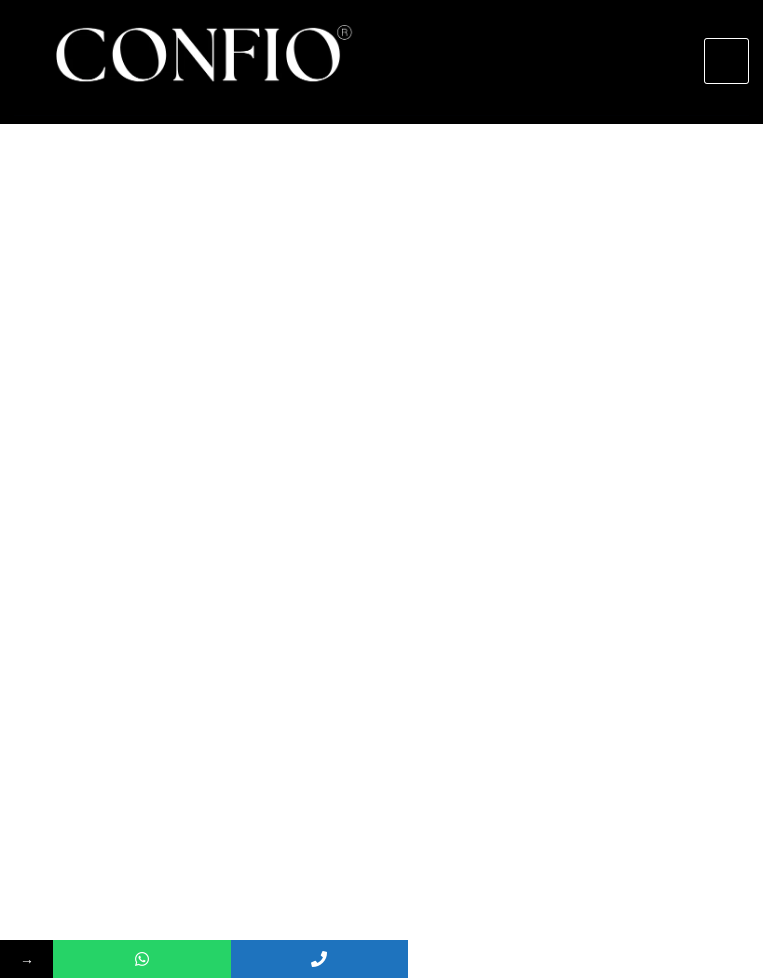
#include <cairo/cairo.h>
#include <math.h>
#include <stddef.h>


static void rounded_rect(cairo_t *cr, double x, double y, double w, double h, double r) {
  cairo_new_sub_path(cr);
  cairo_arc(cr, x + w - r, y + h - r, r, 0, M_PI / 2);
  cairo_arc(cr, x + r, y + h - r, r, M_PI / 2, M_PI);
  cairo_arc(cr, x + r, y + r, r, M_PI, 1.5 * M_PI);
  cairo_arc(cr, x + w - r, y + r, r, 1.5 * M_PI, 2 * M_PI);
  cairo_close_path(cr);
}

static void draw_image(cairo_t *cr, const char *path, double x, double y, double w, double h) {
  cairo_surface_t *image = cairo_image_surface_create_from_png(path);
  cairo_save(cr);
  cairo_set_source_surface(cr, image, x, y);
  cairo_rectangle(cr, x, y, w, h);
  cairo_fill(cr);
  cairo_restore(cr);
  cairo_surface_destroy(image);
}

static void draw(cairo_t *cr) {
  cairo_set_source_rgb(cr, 1, 1, 1);
  cairo_paint(cr);
  cairo_set_source_rgb(cr, 0, 0, 0);
  cairo_rectangle(cr, 0, 0, 763, 124);
  cairo_fill(cr);
  cairo_set_source_rgb(cr, 0, 1 / 255.0, 3 / 255.0);
  cairo_rectangle(cr, 14, 115, 735, 1);
  cairo_fill(cr);
  draw_image(cr, "images/1.png", 56, 25, 297, 57);
  rounded_rect(cr, 704.5, 38.5, 44, 45, 2.5);
  cairo_set_source_rgb(cr, 1, 1, 1);
  cairo_set_line_width(cr, 1);
  cairo_stroke(cr);
  cairo_set_source_rgb(cr, 0, 0, 0);
  cairo_rectangle(cr, 0, 940, 53, 38);
  cairo_fill(cr);
  cairo_set_source_rgb(cr, 38 / 255.0, 211 / 255.0, 103 / 255.0);
  cairo_rectangle(cr, 53, 940, 178, 38);
  cairo_fill(cr);
  draw_image(cr, "images/2.png", 135, 952, 14, 14);
  cairo_set_source_rgb(cr, 30 / 255.0, 115 / 255.0, 190 / 255.0);
  cairo_rectangle(cr, 231, 940, 177, 38);
  cairo_fill(cr);
  draw_image(cr, "images/3.png", 311, 951, 16, 16);
  cairo_select_font_face(cr, "Liberation Serif", CAIRO_FONT_SLANT_NORMAL, CAIRO_FONT_WEIGHT_NORMAL);
  cairo_set_font_size(cr, 14);
  cairo_set_source_rgb(cr, 1, 1, 1);
  cairo_move_to(cr, 20, 964);
  cairo_show_text(cr, "→");
}

int main(void) {
  cairo_surface_t *surface = cairo_image_surface_create(CAIRO_FORMAT_RGB24, 763, 978);
  cairo_t *cr = cairo_create(surface);
  cairo_font_options_t *options = cairo_font_options_create();
  cairo_font_options_set_hint_metrics(options, CAIRO_HINT_METRICS_OFF);
  cairo_font_options_set_hint_style(options, CAIRO_HINT_STYLE_NONE);
  cairo_set_font_options(cr, options);
  cairo_set_miter_limit(cr, 4);
  draw(cr);
  cairo_surface_write_to_png(surface, "out.png");
  cairo_font_options_destroy(options);
  cairo_destroy(cr);
  cairo_surface_destroy(surface);
  return 0;
}
